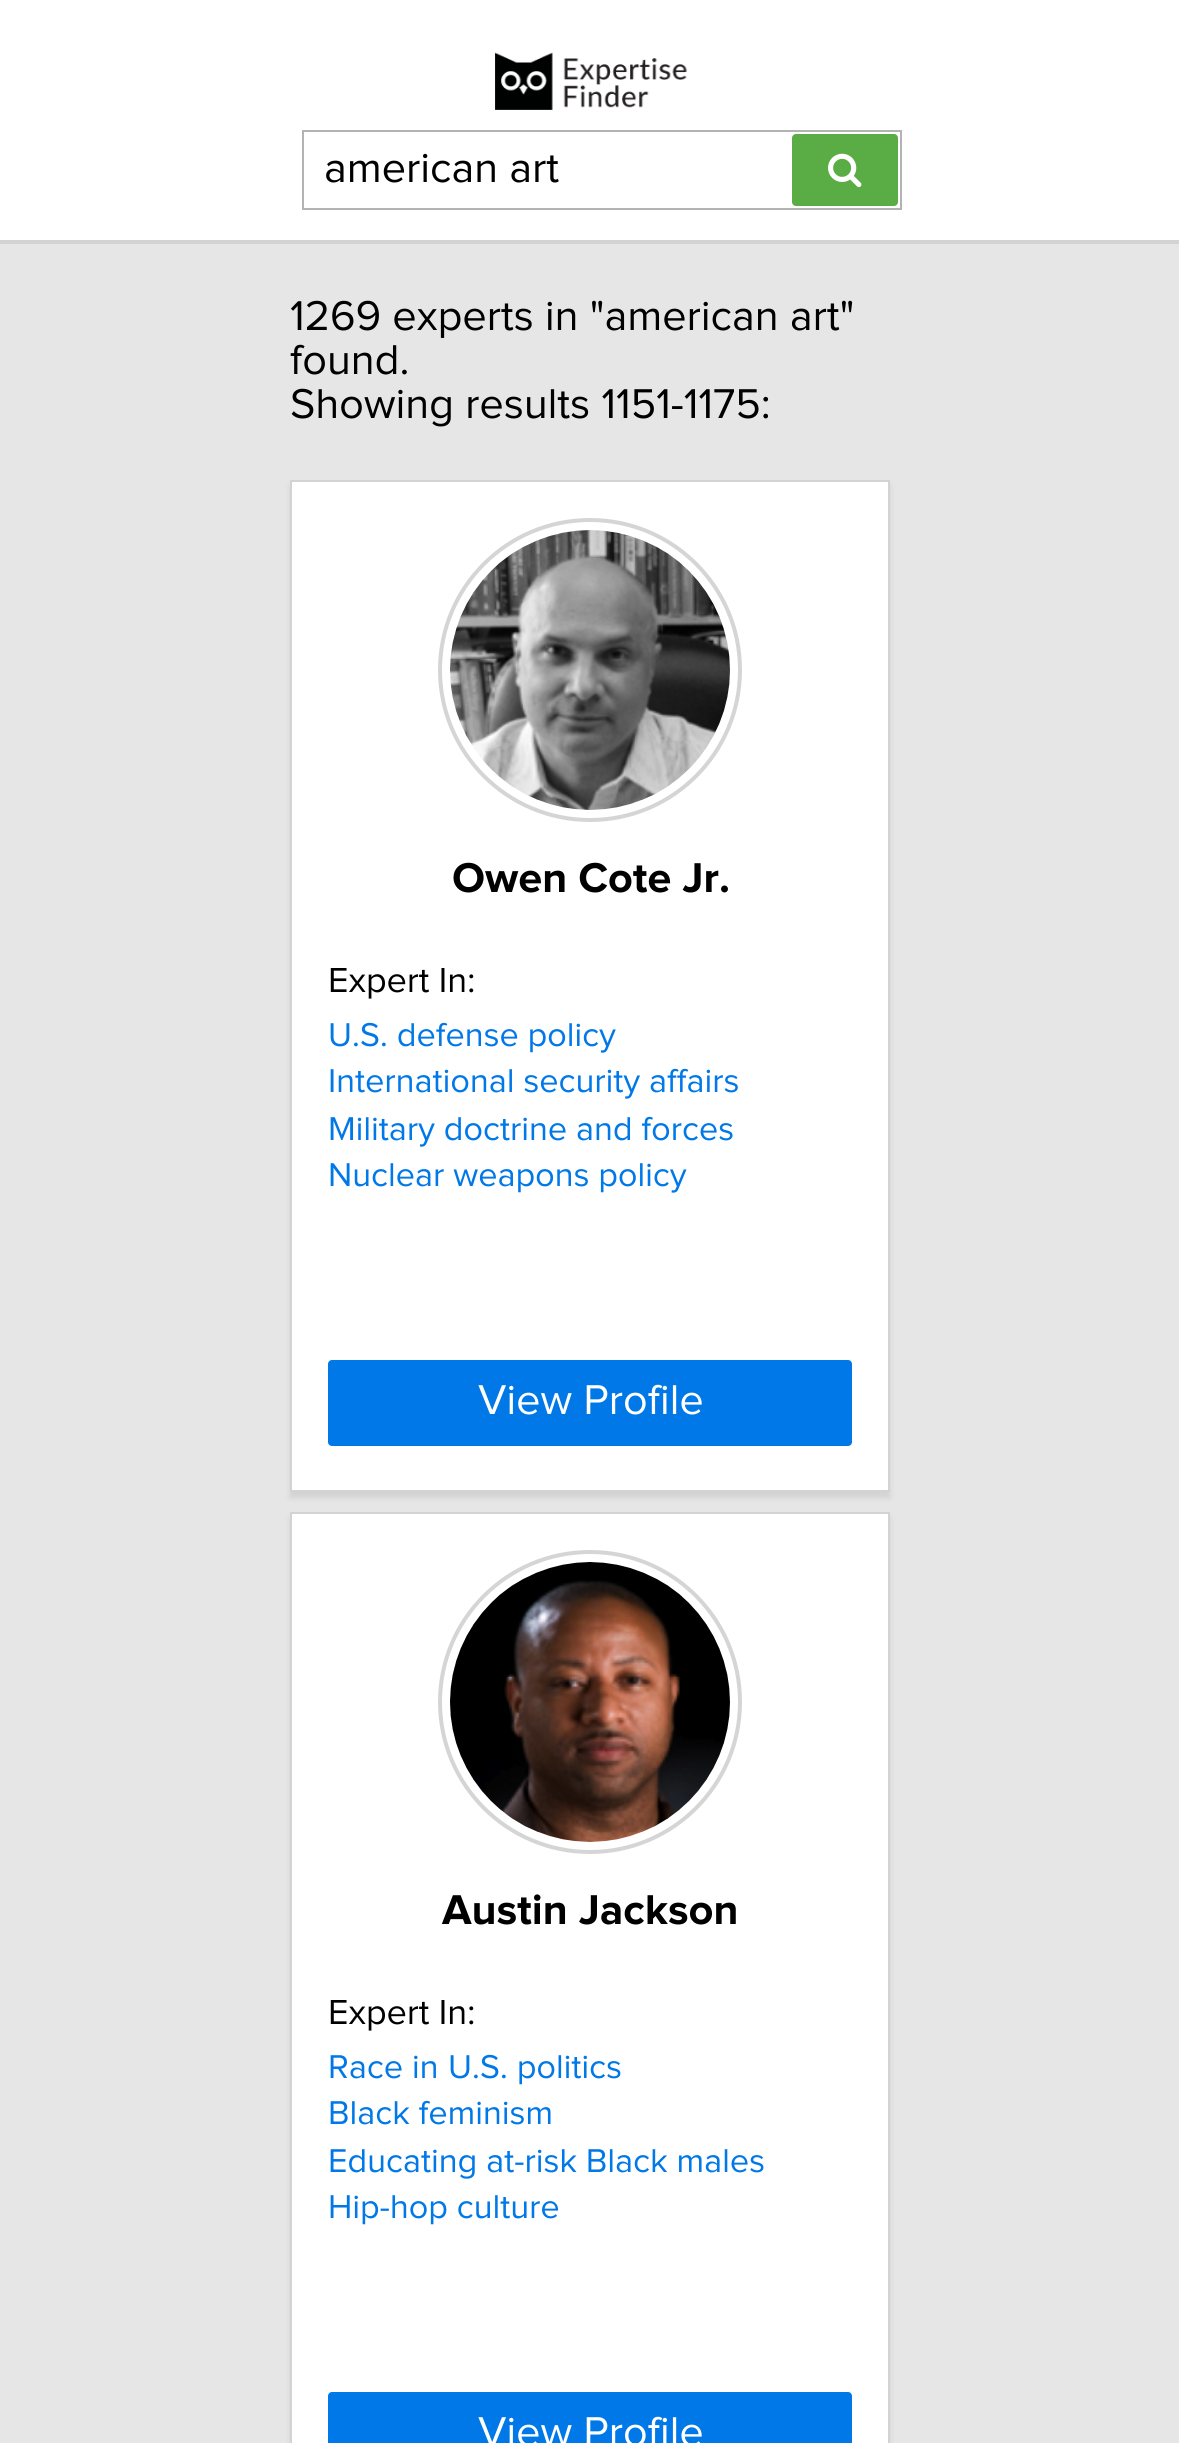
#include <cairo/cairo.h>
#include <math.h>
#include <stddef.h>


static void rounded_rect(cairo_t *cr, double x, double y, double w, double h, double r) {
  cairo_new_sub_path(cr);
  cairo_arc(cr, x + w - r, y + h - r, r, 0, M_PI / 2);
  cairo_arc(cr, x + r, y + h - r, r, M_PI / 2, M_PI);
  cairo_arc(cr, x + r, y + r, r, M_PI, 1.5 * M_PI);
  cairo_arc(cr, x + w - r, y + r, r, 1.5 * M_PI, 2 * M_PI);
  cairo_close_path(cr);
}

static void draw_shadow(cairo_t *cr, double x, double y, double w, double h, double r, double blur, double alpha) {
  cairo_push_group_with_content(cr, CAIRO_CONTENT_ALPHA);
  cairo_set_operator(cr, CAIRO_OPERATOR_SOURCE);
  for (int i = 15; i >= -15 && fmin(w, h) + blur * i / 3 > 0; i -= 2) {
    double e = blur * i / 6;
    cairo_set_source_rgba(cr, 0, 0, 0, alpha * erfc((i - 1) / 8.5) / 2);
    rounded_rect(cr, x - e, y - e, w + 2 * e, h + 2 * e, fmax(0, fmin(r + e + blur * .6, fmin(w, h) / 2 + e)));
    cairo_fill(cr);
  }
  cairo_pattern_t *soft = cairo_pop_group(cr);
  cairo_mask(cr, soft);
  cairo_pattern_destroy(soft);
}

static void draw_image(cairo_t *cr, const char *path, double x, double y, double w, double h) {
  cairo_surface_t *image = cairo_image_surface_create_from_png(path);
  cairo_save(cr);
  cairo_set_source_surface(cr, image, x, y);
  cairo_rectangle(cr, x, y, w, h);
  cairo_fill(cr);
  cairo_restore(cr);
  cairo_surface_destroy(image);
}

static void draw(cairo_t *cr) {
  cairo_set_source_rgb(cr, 230 / 255.0, 230 / 255.0, 230 / 255.0);
  cairo_paint(cr);
  cairo_set_source_rgb(cr, 1, 1, 1);
  cairo_rectangle(cr, 0, 0, 1179, 240);
  cairo_fill(cr);
  cairo_set_source_rgb(cr, 211 / 255.0, 211 / 255.0, 211 / 255.0);
  cairo_rectangle(cr, 0, 240, 1179, 4);
  cairo_fill(cr);
  draw_image(cr, "images/1.png", 495, 52, 193, 58);
  cairo_rectangle(cr, 303, 131, 598, 78);
  cairo_set_source_rgb(cr, 179 / 255.0, 179 / 255.0, 179 / 255.0);
  cairo_stroke(cr);
  draw_image(cr, "images/2.png", 326, 153, 233, 30);
  cairo_set_source_rgb(cr, 90 / 255.0, 172 / 255.0, 68 / 255.0);
  rounded_rect(cr, 792, 134, 106, 72, 4);
  cairo_fill(cr);
  draw_image(cr, "images/3.png", 828, 153, 34, 35);
  draw_image(cr, "images/4.png", 291, 300, 562, 38);
  draw_image(cr, "images/5.png", 290, 344, 117, 31);
  draw_image(cr, "images/6.png", 291, 388, 478, 39);
  cairo_set_source_rgb(cr, 0, 0, 0);
  draw_shadow(cr, 290, 486, 600, 1012, 0, 3, 0.09);
  cairo_set_source_rgb(cr, 1, 1, 1);
  cairo_rectangle(cr, 291, 481, 598, 1010);
  cairo_fill_preserve(cr);
  cairo_set_source_rgb(cr, 211 / 255.0, 211 / 255.0, 211 / 255.0);
  cairo_stroke(cr);
  cairo_arc(cr, 590, 670, 150, 0, 2 * M_PI);
  cairo_set_source_rgb(cr, 213 / 255.0, 213 / 255.0, 213 / 255.0);
  cairo_set_line_width(cr, 4);
  cairo_stroke(cr);
  draw_image(cr, "images/7.png", 450, 530, 280, 280);
  draw_image(cr, "images/8.png", 453, 862, 275, 31);
  draw_image(cr, "images/9.png", 330, 968, 144, 31);
  draw_image(cr, "images/10.png", 330, 1022, 56, 25);
  draw_image(cr, "images/11.png", 398, 1022, 218, 31);
  draw_image(cr, "images/12.png", 330, 1068, 408, 31);
  draw_image(cr, "images/13.png", 330, 1116, 403, 31);
  draw_image(cr, "images/14.png", 330, 1163, 357, 30);
  cairo_set_source_rgb(cr, 0, 120 / 255.0, 231 / 255.0);
  rounded_rect(cr, 328, 1360, 524, 86, 4);
  cairo_fill(cr);
  draw_image(cr, "images/15.png", 478, 1384, 224, 31);
  cairo_set_source_rgb(cr, 0, 0, 0);
  draw_shadow(cr, 290, 1518, 600, 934, 0, 3, 0.09);
  cairo_set_source_rgb(cr, 1, 1, 1);
  cairo_rectangle(cr, 291, 1513, 598, 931);
  cairo_fill_preserve(cr);
  cairo_set_source_rgb(cr, 211 / 255.0, 211 / 255.0, 211 / 255.0);
  cairo_set_line_width(cr, 2);
  cairo_stroke(cr);
  cairo_arc(cr, 590, 1702, 150, 0, 2 * M_PI);
  cairo_set_source_rgb(cr, 213 / 255.0, 213 / 255.0, 213 / 255.0);
  cairo_set_line_width(cr, 4);
  cairo_stroke(cr);
  draw_image(cr, "images/16.png", 450, 1562, 280, 280);
  draw_image(cr, "images/17.png", 441, 1894, 295, 31);
  draw_image(cr, "images/9.png", 330, 2000, 144, 31);
  draw_image(cr, "images/18.png", 330, 2055, 106, 24);
  draw_image(cr, "images/10.png", 450, 2054, 56, 25);
  draw_image(cr, "images/19.png", 519, 2055, 102, 30);
  draw_image(cr, "images/20.png", 330, 2100, 221, 25);
  draw_image(cr, "images/21.png", 330, 2149, 434, 30);
  draw_image(cr, "images/22.png", 330, 2195, 229, 30);
  cairo_set_source_rgb(cr, 0, 120 / 255.0, 231 / 255.0);
  rounded_rect(cr, 328, 2392, 524, 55, 4);
  cairo_fill(cr);
  draw_image(cr, "images/23.png", 478, 2416, 224, 27);
}

int main(void) {
  cairo_surface_t *surface = cairo_image_surface_create(CAIRO_FORMAT_RGB24, 1179, 2443);
  cairo_t *cr = cairo_create(surface);
  cairo_font_options_t *options = cairo_font_options_create();
  cairo_font_options_set_hint_metrics(options, CAIRO_HINT_METRICS_OFF);
  cairo_font_options_set_hint_style(options, CAIRO_HINT_STYLE_NONE);
  cairo_set_font_options(cr, options);
  cairo_set_miter_limit(cr, 4);
  draw(cr);
  cairo_surface_write_to_png(surface, "out.png");
  cairo_font_options_destroy(options);
  cairo_destroy(cr);
  cairo_surface_destroy(surface);
  return 0;
}
